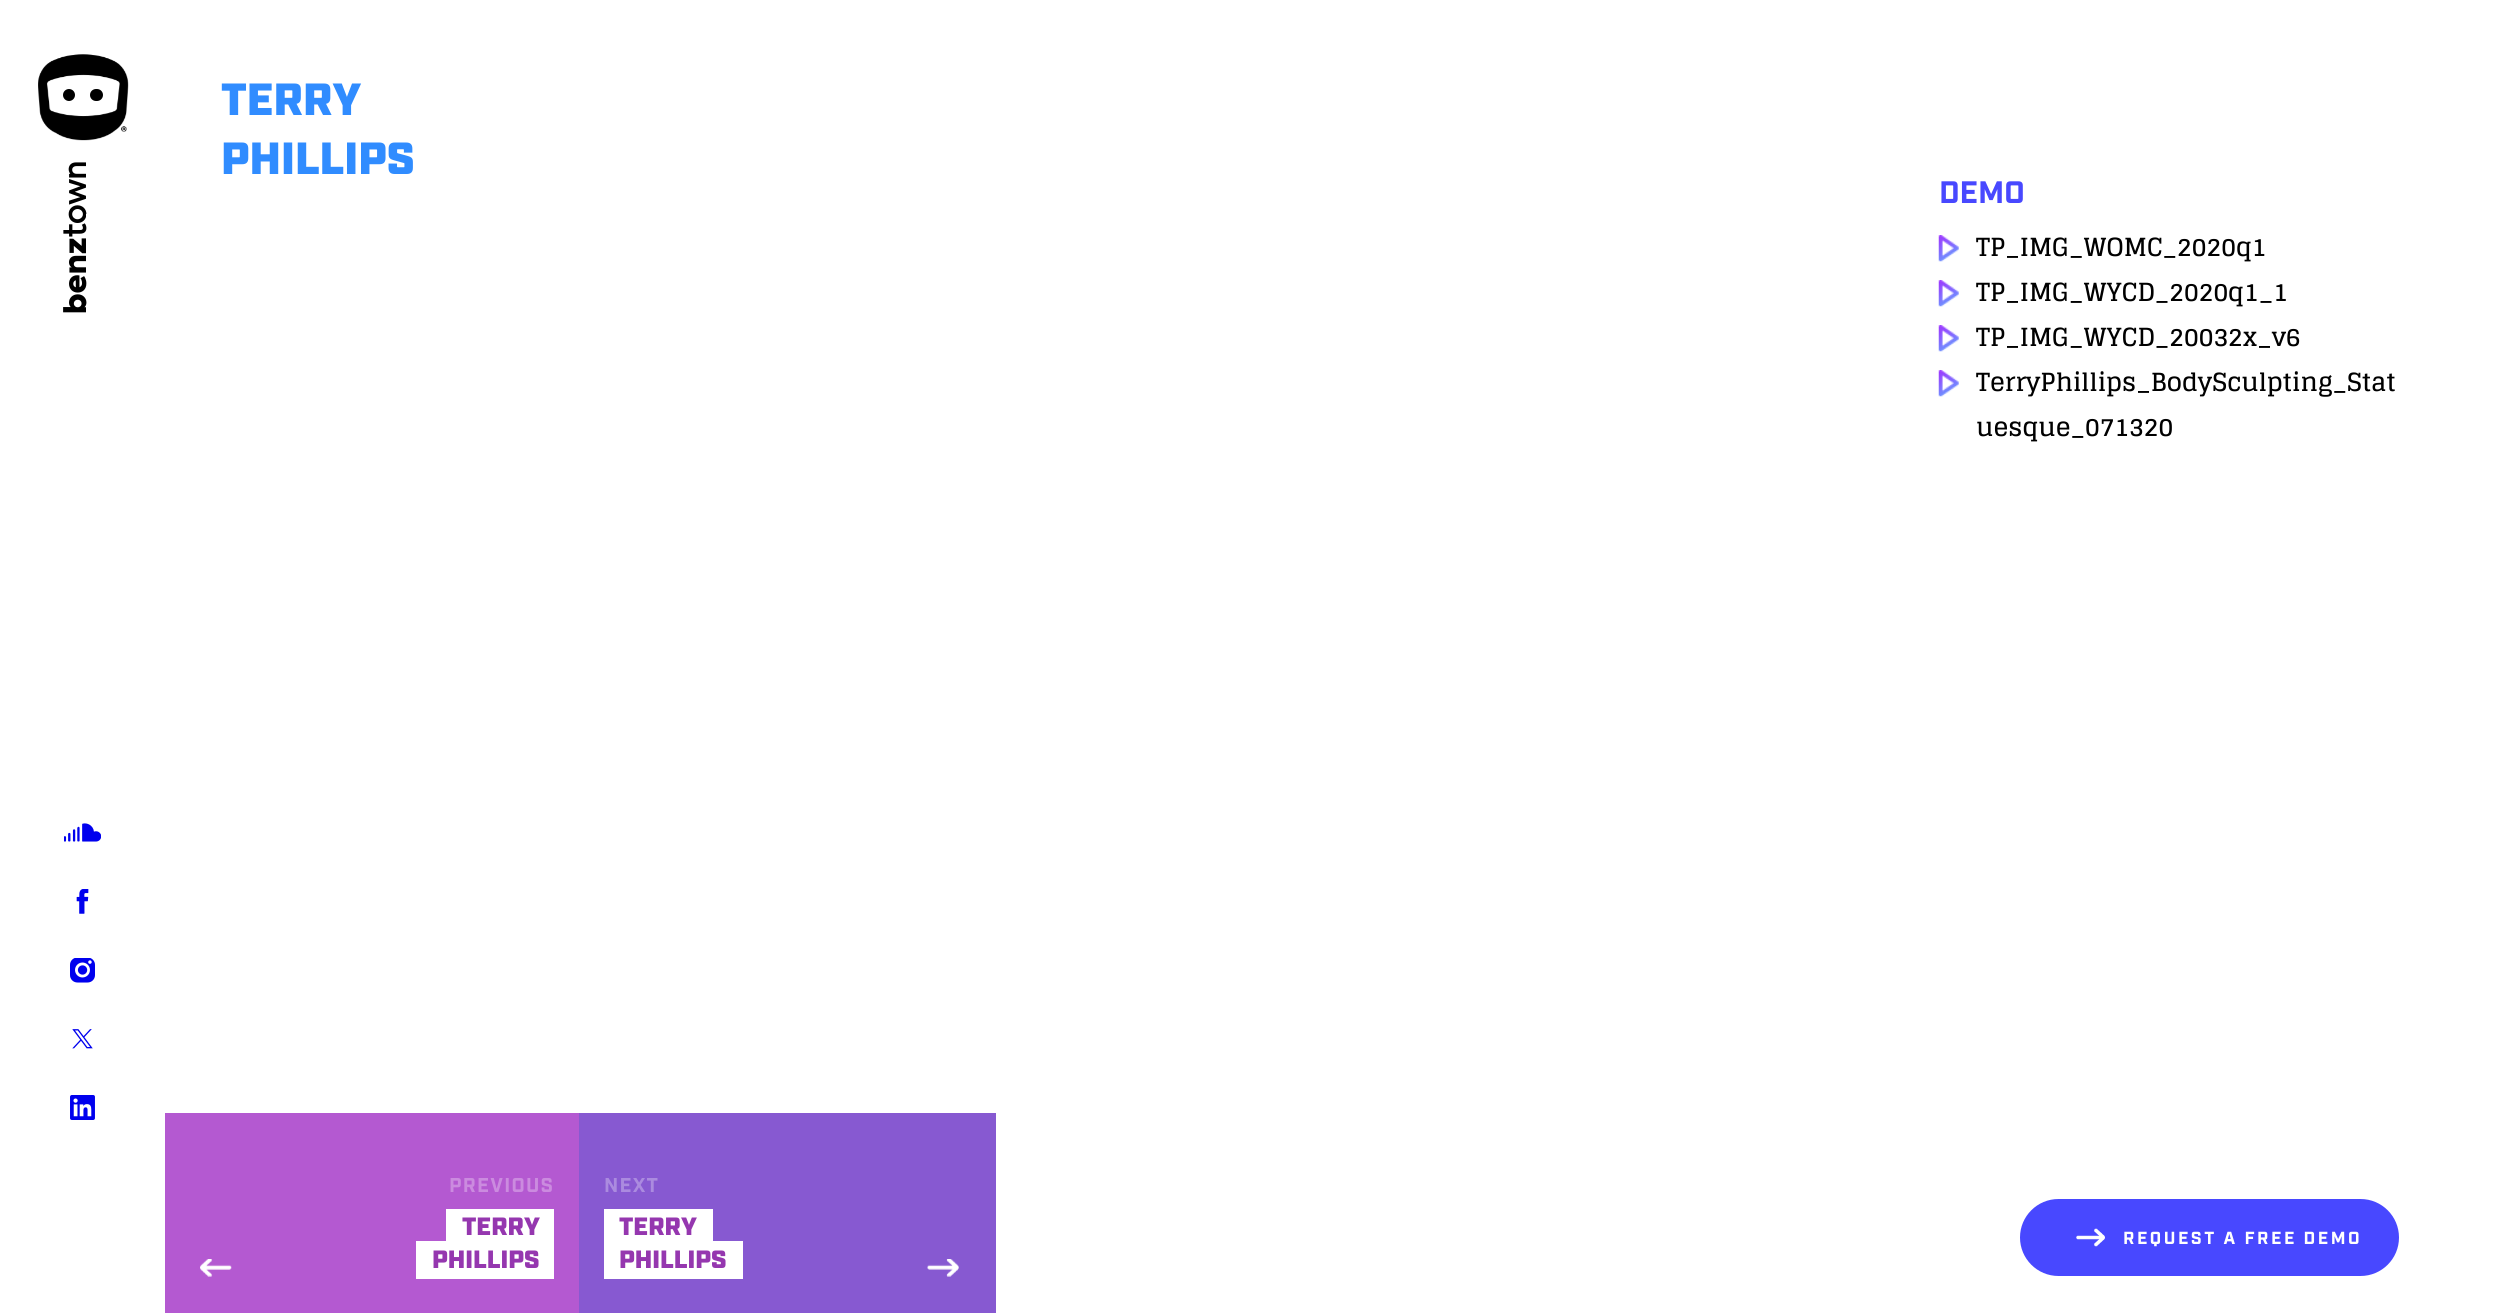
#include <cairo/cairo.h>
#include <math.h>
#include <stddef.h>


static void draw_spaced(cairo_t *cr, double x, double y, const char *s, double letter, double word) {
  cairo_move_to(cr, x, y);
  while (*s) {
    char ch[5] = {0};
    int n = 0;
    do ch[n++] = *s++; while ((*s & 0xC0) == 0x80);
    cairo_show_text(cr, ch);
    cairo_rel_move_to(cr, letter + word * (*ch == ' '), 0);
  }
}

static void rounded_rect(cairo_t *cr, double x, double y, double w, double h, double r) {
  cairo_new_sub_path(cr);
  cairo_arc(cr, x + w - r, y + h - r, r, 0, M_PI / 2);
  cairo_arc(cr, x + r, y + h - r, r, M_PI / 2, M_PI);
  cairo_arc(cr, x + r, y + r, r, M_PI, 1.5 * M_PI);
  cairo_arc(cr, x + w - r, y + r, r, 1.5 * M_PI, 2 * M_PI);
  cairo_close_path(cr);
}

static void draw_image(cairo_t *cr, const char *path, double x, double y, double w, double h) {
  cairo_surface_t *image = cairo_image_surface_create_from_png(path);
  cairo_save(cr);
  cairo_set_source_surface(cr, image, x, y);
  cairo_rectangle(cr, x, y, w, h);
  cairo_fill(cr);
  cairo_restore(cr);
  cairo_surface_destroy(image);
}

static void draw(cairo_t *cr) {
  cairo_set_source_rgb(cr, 1, 1, 1);
  cairo_paint(cr);
  draw_image(cr, "images/1.png", 38, 54, 91, 87);
  cairo_set_source_rgb(cr, 0, 0, 0);
  cairo_arc(cr, 69, 95, 6, 0, 2 * M_PI);
  cairo_fill(cr);
  rounded_rect(cr, 90, 89, 13, 12, 6);
  cairo_fill(cr);
  draw_image(cr, "images/2.png", 64, 823, 37, 19);
  draw_image(cr, "images/3.png", 76, 889, 13, 25);
  draw_image(cr, "images/4.png", 70, 958, 25, 25);
  draw_image(cr, "images/5.png", 72, 1029, 21, 20);
  draw_image(cr, "images/6.png", 70, 1095, 25, 25);
  cairo_set_source_rgb(cr, 180 / 255.0, 89 / 255.0, 209 / 255.0);
  cairo_rectangle(cr, 165, 1113, 414, 200);
  cairo_fill(cr);
  draw_image(cr, "images/7.png", 200, 1259, 32, 18);
  cairo_set_source_rgb(cr, 1, 1, 1);
  cairo_rectangle(cr, 446, 1209, 108, 32);
  cairo_fill(cr);
  cairo_rectangle(cr, 416, 1241, 138, 38);
  cairo_fill(cr);
  cairo_set_source_rgb(cr, 135 / 255.0, 89 / 255.0, 209 / 255.0);
  cairo_rectangle(cr, 579, 1113, 417, 200);
  cairo_fill(cr);
  cairo_set_source_rgb(cr, 1, 1, 1);
  cairo_rectangle(cr, 604, 1209, 109, 32);
  cairo_fill(cr);
  cairo_rectangle(cr, 604, 1241, 139, 38);
  cairo_fill(cr);
  draw_image(cr, "images/8.png", 927, 1259, 32, 18);
  draw_image(cr, "images/9.png", 1938, 235, 21, 27);
  draw_image(cr, "images/10.png", 1938, 280, 21, 27);
  draw_image(cr, "images/9.png", 1938, 325, 21, 27);
  draw_image(cr, "images/9.png", 1938, 370, 21, 27);
  cairo_set_source_rgb(cr, 72 / 255.0, 72 / 255.0, 1);
  rounded_rect(cr, 2020, 1199, 379, 77, 38.5);
  cairo_fill(cr);
  draw_image(cr, "images/11.png", 2076, 1228, 29, 19);
  cairo_select_font_face(cr, "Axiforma", CAIRO_FONT_SLANT_NORMAL, CAIRO_FONT_WEIGHT_BOLD);
  cairo_set_font_size(cr, 30);
  cairo_set_source_rgb(cr, 0, 0, 0);
  cairo_save(cr);
  cairo_translate(cr, 86, 237);
  cairo_rotate(cr, -90 * M_PI / 180);
  cairo_move_to(cr, 0, 0);
  cairo_show_text(cr, "town");
  cairo_restore(cr);
  cairo_select_font_face(cr, "Axiforma Black", CAIRO_FONT_SLANT_NORMAL, CAIRO_FONT_WEIGHT_NORMAL);
  cairo_save(cr);
  cairo_translate(cr, 86, 314);
  cairo_rotate(cr, -90 * M_PI / 180);
  cairo_move_to(cr, 0, 0);
  cairo_show_text(cr, "benz");
  cairo_restore(cr);
  cairo_set_source_rgb(cr, 1, 1, 1);
  cairo_rectangle(cr, 86, 196, 1, 3);
  cairo_fill(cr);
  cairo_rectangle(cr, 86, 214, 1, 4);
  cairo_fill(cr);
  cairo_rectangle(cr, 86, 238, 1, 1);
  cairo_fill(cr);
  cairo_select_font_face(cr, "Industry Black", CAIRO_FONT_SLANT_NORMAL, CAIRO_FONT_WEIGHT_NORMAL);
  cairo_set_font_size(cr, 45);
  cairo_set_source_rgb(cr, 48 / 255.0, 140 / 255.0, 1);
  cairo_move_to(cr, 221, 115);
  cairo_show_text(cr, "TERRY");
  cairo_move_to(cr, 221, 174);
  cairo_show_text(cr, "PHILLIPS");
  cairo_select_font_face(cr, "Industry", CAIRO_FONT_SLANT_NORMAL, CAIRO_FONT_WEIGHT_BOLD);
  cairo_set_font_size(cr, 20);
  cairo_set_source_rgb(cr, 203 / 255.0, 139 / 255.0, 223 / 255.0);
  draw_spaced(cr, 449, 1192, "PREVIOUS", 1.25, 0);
  cairo_select_font_face(cr, "Industry Black", CAIRO_FONT_SLANT_NORMAL, CAIRO_FONT_WEIGHT_NORMAL);
  cairo_set_font_size(cr, 25);
  cairo_set_source_rgb(cr, 149 / 255.0, 55 / 255.0, 175 / 255.0);
  cairo_move_to(cr, 462, 1235);
  cairo_show_text(cr, "TERRY");
  cairo_move_to(cr, 432, 1268);
  cairo_show_text(cr, "PHILLIPS");
  cairo_select_font_face(cr, "Industry", CAIRO_FONT_SLANT_NORMAL, CAIRO_FONT_WEIGHT_BOLD);
  cairo_set_font_size(cr, 20);
  cairo_set_source_rgb(cr, 171 / 255.0, 139 / 255.0, 223 / 255.0);
  draw_spaced(cr, 604, 1192, "NEXT", 1.25, 0);
  cairo_select_font_face(cr, "Industry Black", CAIRO_FONT_SLANT_NORMAL, CAIRO_FONT_WEIGHT_NORMAL);
  cairo_set_font_size(cr, 25);
  cairo_set_source_rgb(cr, 149 / 255.0, 55 / 255.0, 175 / 255.0);
  cairo_move_to(cr, 619, 1235);
  cairo_show_text(cr, "TERRY");
  cairo_move_to(cr, 619, 1268);
  cairo_show_text(cr, "PHILLIPS");
  cairo_select_font_face(cr, "Industry", CAIRO_FONT_SLANT_NORMAL, CAIRO_FONT_WEIGHT_BOLD);
  cairo_set_font_size(cr, 31);
  cairo_set_source_rgb(cr, 72 / 255.0, 72 / 255.0, 1);
  cairo_move_to(cr, 1939, 203);
  cairo_show_text(cr, "DEMO");
  cairo_select_font_face(cr, "Glegoo", CAIRO_FONT_SLANT_NORMAL, CAIRO_FONT_WEIGHT_BOLD);
  cairo_set_font_size(cr, 25);
  cairo_set_source_rgb(cr, 0, 0, 0);
  cairo_move_to(cr, 1976, 256);
  cairo_show_text(cr, "TP_IMG_WOMC_2020q1");
  cairo_move_to(cr, 1976, 301);
  cairo_show_text(cr, "TP_IMG_WYCD_2020q1_1");
  cairo_move_to(cr, 1976, 346);
  cairo_show_text(cr, "TP_IMG_WYCD_20032x_v6");
  cairo_move_to(cr, 1976, 391);
  cairo_show_text(cr, "TerryPhillips_BodySculpting_Stat");
  cairo_move_to(cr, 1976, 436);
  cairo_show_text(cr, "uesque_071320");
  cairo_select_font_face(cr, "Industry", CAIRO_FONT_SLANT_NORMAL, CAIRO_FONT_WEIGHT_BOLD);
  cairo_set_font_size(cr, 17.5);
  cairo_set_source_rgb(cr, 1, 1, 1);
  draw_spaced(cr, 2123, 1244, "REQUEST A FREE DEMO", 2.5, 0);
}

int main(void) {
  cairo_surface_t *surface = cairo_image_surface_create(CAIRO_FORMAT_RGB24, 2511, 1313);
  cairo_t *cr = cairo_create(surface);
  cairo_font_options_t *options = cairo_font_options_create();
  cairo_font_options_set_hint_metrics(options, CAIRO_HINT_METRICS_OFF);
  cairo_font_options_set_hint_style(options, CAIRO_HINT_STYLE_NONE);
  cairo_set_font_options(cr, options);
  cairo_set_miter_limit(cr, 4);
  draw(cr);
  cairo_surface_write_to_png(surface, "out.png");
  cairo_font_options_destroy(options);
  cairo_destroy(cr);
  cairo_surface_destroy(surface);
  return 0;
}
